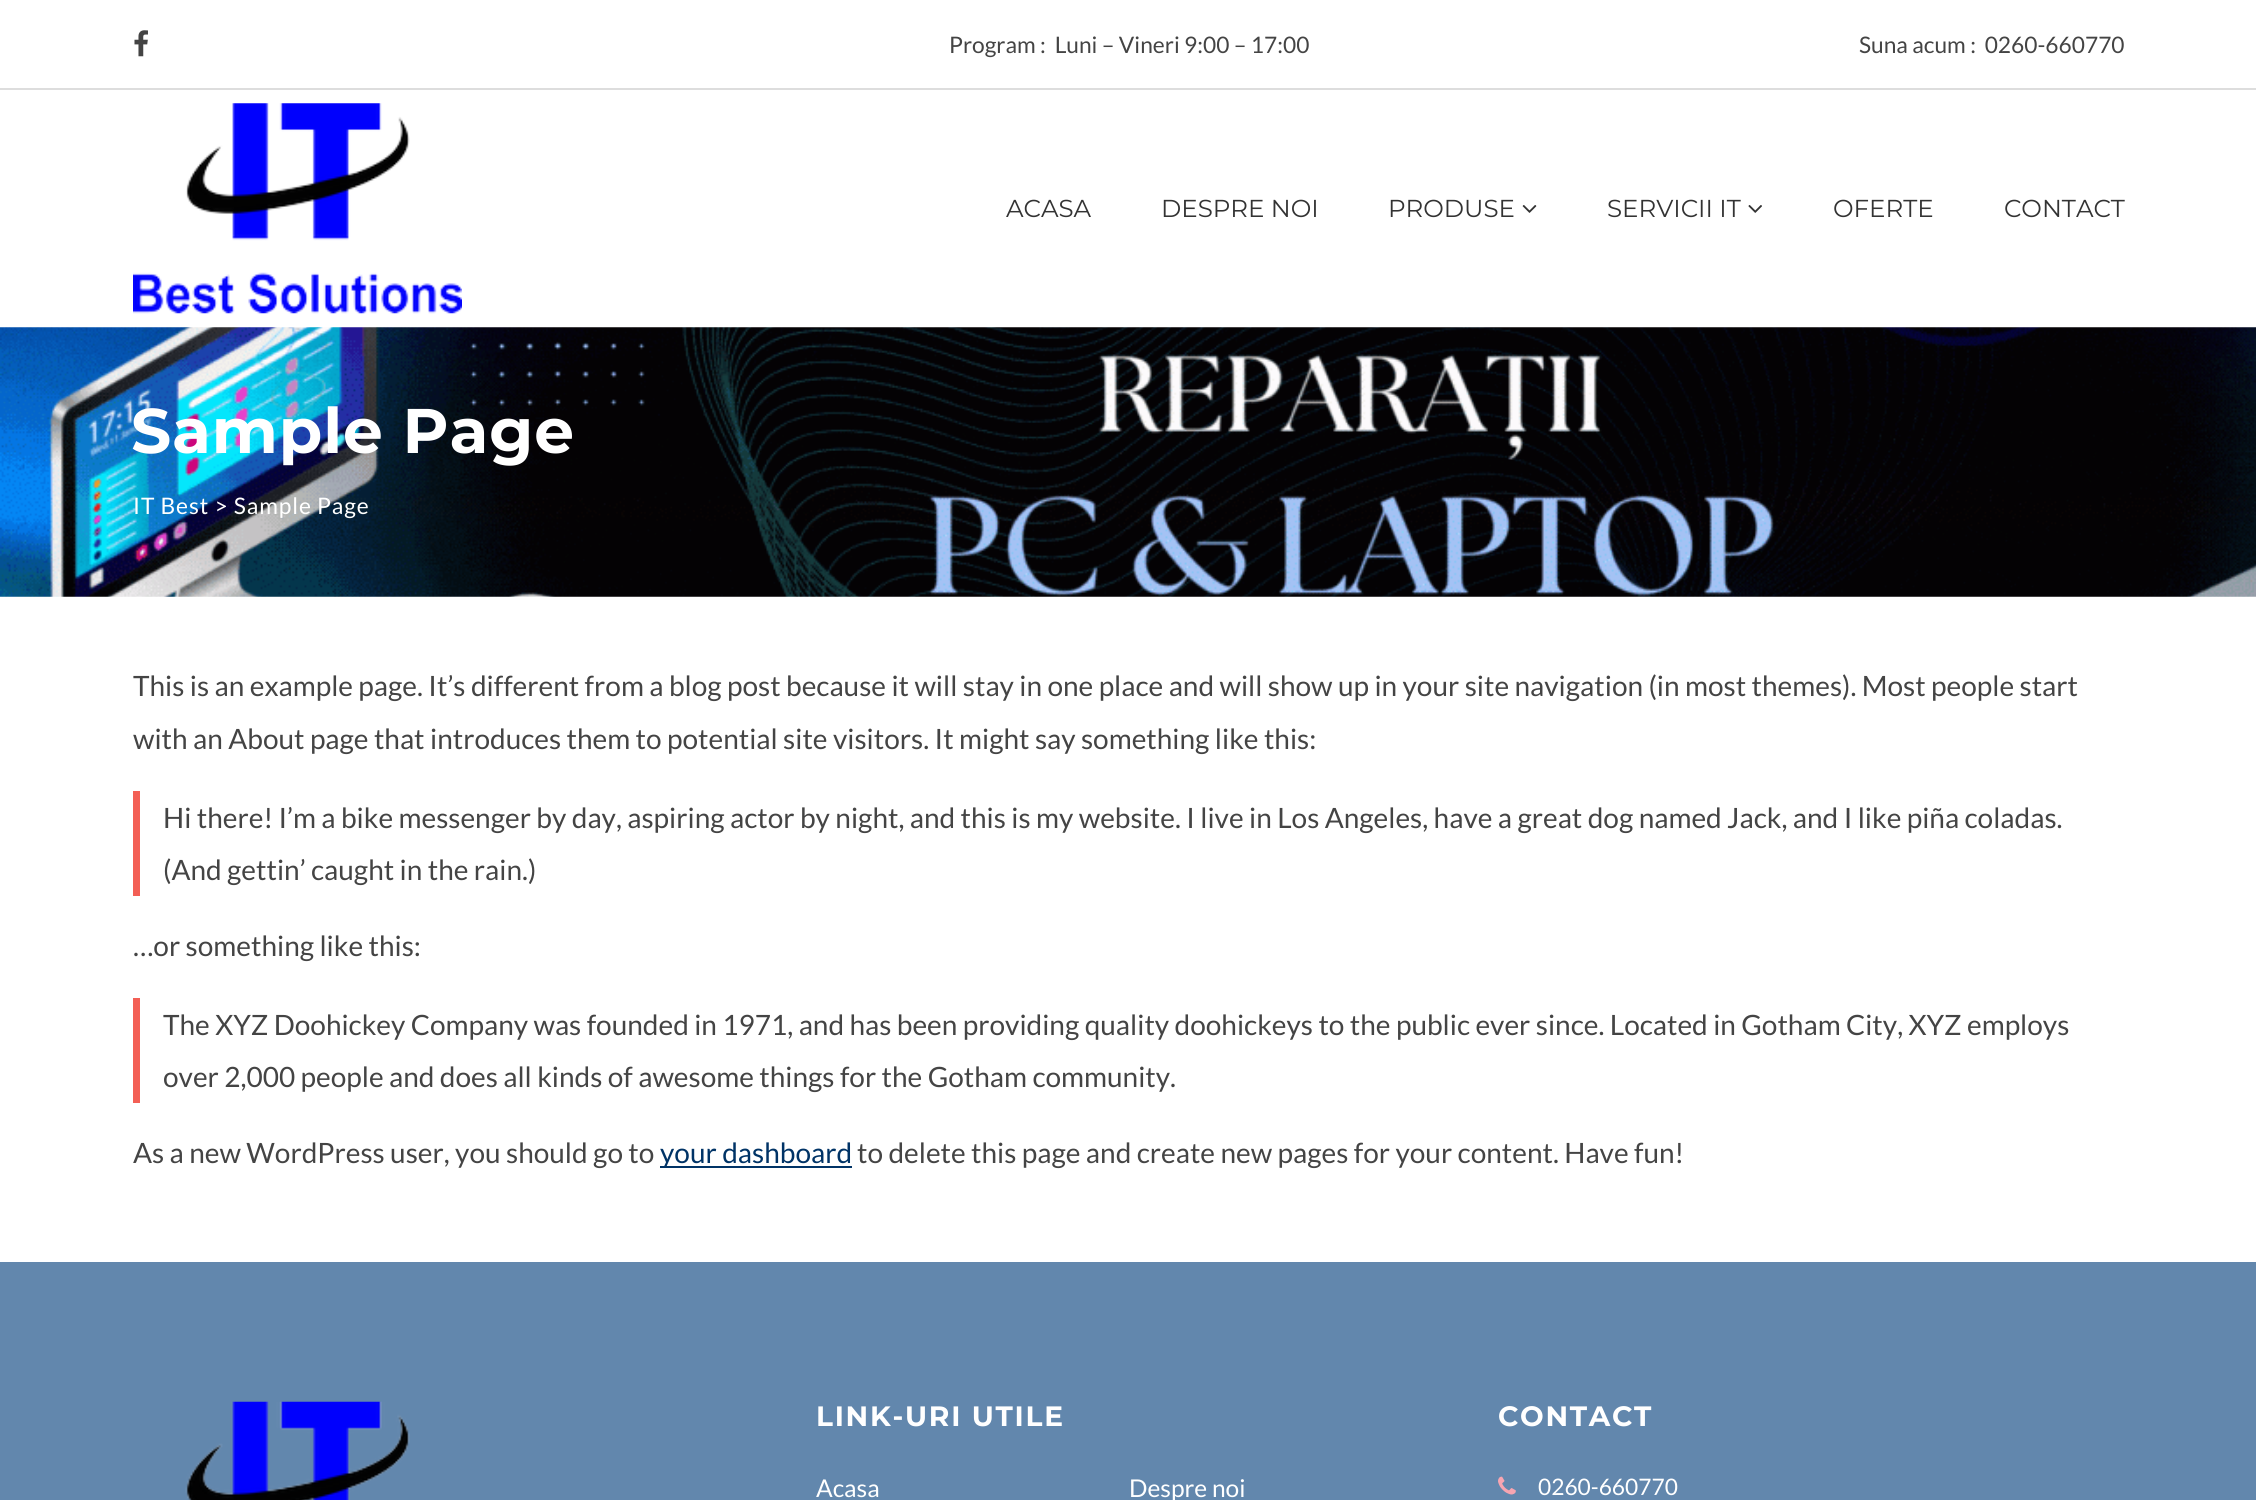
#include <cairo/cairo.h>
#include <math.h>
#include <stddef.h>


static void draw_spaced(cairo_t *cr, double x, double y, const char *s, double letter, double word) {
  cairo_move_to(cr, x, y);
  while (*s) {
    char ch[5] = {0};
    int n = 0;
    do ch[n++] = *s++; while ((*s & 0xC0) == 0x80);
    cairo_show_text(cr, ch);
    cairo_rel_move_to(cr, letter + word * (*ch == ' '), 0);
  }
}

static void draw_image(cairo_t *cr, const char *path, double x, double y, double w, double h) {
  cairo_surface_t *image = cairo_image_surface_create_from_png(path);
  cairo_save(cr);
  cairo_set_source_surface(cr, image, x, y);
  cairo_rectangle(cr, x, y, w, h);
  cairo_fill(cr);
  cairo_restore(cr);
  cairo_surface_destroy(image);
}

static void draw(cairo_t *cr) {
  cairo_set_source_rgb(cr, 1, 1, 1);
  cairo_paint(cr);
  cairo_set_source_rgb(cr, 221 / 255.0, 221 / 255.0, 221 / 255.0);
  cairo_rectangle(cr, 0, 88, 2256, 2);
  cairo_fill(cr);
  draw_image(cr, "images/1.png", 134, 30, 14, 27);
  draw_image(cr, "images/2.png", 133, 103, 329, 211);
  draw_image(cr, "images/3.png", 1522, 205, 15, 8);
  draw_image(cr, "images/4.png", 1748, 205, 14, 8);
  draw_image(cr, "images/5.png", 0, 327, 2256, 270);
  cairo_set_source_rgb(cr, 243 / 255.0, 95 / 255.0, 85 / 255.0);
  cairo_rectangle(cr, 133, 791, 7, 105);
  cairo_fill(cr);
  cairo_rectangle(cr, 133, 998, 7, 105);
  cairo_fill(cr);
  cairo_set_source_rgb(cr, 0, 51 / 255.0, 102 / 255.0);
  cairo_rectangle(cr, 660, 1166, 192, 2);
  cairo_fill(cr);
  cairo_set_source_rgb(cr, 98 / 255.0, 135 / 255.0, 173 / 255.0);
  cairo_rectangle(cr, 0, 1262, 2256, 238);
  cairo_fill(cr);
  draw_image(cr, "images/6.png", 185, 1401, 225, 99);
  draw_image(cr, "images/7.png", 1498, 1476, 18, 19);
  cairo_select_font_face(cr, "Lato", CAIRO_FONT_SLANT_NORMAL, CAIRO_FONT_WEIGHT_NORMAL);
  cairo_set_font_size(cr, 22.75);
  cairo_set_source_rgb(cr, 68 / 255.0, 68 / 255.0, 68 / 255.0);
  cairo_move_to(cr, 949, 53);
  cairo_show_text(cr, "Program :  Luni – Vineri 9:00 – 17:00");
  cairo_move_to(cr, 1859, 53);
  cairo_show_text(cr, "Suna acum :  0260-660770");
  cairo_select_font_face(cr, "Montserrat", CAIRO_FONT_SLANT_NORMAL, CAIRO_FONT_WEIGHT_NORMAL);
  cairo_set_font_size(cr, 24.5);
  cairo_set_source_rgb(cr, 51 / 255.0, 51 / 255.0, 51 / 255.0);
  cairo_move_to(cr, 1006, 217);
  cairo_show_text(cr, "ACASA");
  cairo_move_to(cr, 1161, 217);
  cairo_show_text(cr, "DESPRE NOI");
  cairo_move_to(cr, 1388, 217);
  cairo_show_text(cr, "PRODUSE");
  cairo_move_to(cr, 1607, 217);
  cairo_show_text(cr, "SERVICII IT");
  cairo_move_to(cr, 1833, 217);
  cairo_show_text(cr, "OFERTE");
  cairo_move_to(cr, 2004, 217);
  cairo_show_text(cr, "CONTACT");
  cairo_select_font_face(cr, "Montserrat", CAIRO_FONT_SLANT_NORMAL, CAIRO_FONT_WEIGHT_BOLD);
  cairo_set_font_size(cr, 63);
  cairo_set_source_rgb(cr, 1, 1, 1);
  draw_spaced(cr, 131, 453, "Sample Page", 0.9, 0);
  cairo_select_font_face(cr, "Lato", CAIRO_FONT_SLANT_NORMAL, CAIRO_FONT_WEIGHT_NORMAL);
  cairo_set_font_size(cr, 22.75);
  draw_spaced(cr, 133, 514, "IT Best > Sample Page", 0.9, 0);
  cairo_set_font_size(cr, 28);
  cairo_set_source_rgb(cr, 68 / 255.0, 68 / 255.0, 68 / 255.0);
  cairo_move_to(cr, 133, 696);
  cairo_show_text(cr, "This is an example page. It’s different from a blog post because it will stay in one place and will show up in your site navigation (in most themes). Most people start");
  cairo_move_to(cr, 133, 749);
  cairo_show_text(cr, "with an About page that introduces them to potential site visitors. It might say something like this:");
  cairo_move_to(cr, 163, 828);
  cairo_show_text(cr, "Hi there! I’m a bike messenger by day, aspiring actor by night, and this is my website. I live in Los Angeles, have a great dog named Jack, and I like piña coladas.");
  cairo_move_to(cr, 163, 880);
  cairo_show_text(cr, "(And gettin’ caught in the rain.)");
  cairo_move_to(cr, 133, 956);
  cairo_show_text(cr, "…or something like this:");
  cairo_move_to(cr, 163, 1035);
  cairo_show_text(cr, "The XYZ Doohickey Company was founded in 1971, and has been providing quality doohickeys to the public ever since. Located in Gotham City, XYZ employs");
  cairo_move_to(cr, 163, 1087);
  cairo_show_text(cr, "over 2,000 people and does all kinds of awesome things for the Gotham community.");
  cairo_move_to(cr, 133, 1163);
  cairo_show_text(cr, "As a new WordPress user, you should go to");
  cairo_set_source_rgb(cr, 0, 51 / 255.0, 102 / 255.0);
  cairo_move_to(cr, 660, 1163);
  cairo_show_text(cr, "your dashboard");
  cairo_set_source_rgb(cr, 68 / 255.0, 68 / 255.0, 68 / 255.0);
  cairo_move_to(cr, 857, 1163);
  cairo_show_text(cr, "to delete this page and create new pages for your content. Have fun!");
  cairo_select_font_face(cr, "Montserrat", CAIRO_FONT_SLANT_NORMAL, CAIRO_FONT_WEIGHT_BOLD);
  cairo_set_source_rgb(cr, 1, 1, 1);
  draw_spaced(cr, 816, 1426, "LINK-URI UTILE", 1.75, 0);
  cairo_select_font_face(cr, "Lato", CAIRO_FONT_SLANT_NORMAL, CAIRO_FONT_WEIGHT_NORMAL);
  cairo_set_font_size(cr, 24.5);
  cairo_move_to(cr, 816, 1497);
  cairo_show_text(cr, "Acasa");
  cairo_move_to(cr, 1129, 1497);
  cairo_show_text(cr, "Despre noi");
  cairo_select_font_face(cr, "Montserrat", CAIRO_FONT_SLANT_NORMAL, CAIRO_FONT_WEIGHT_BOLD);
  cairo_set_font_size(cr, 28);
  draw_spaced(cr, 1498, 1426, "CONTACT", 1.75, 0);
  cairo_select_font_face(cr, "Lato", CAIRO_FONT_SLANT_NORMAL, CAIRO_FONT_WEIGHT_NORMAL);
  cairo_set_font_size(cr, 22.75);
  cairo_move_to(cr, 1538, 1495);
  cairo_show_text(cr, "0260-660770");
}

int main(void) {
  cairo_surface_t *surface = cairo_image_surface_create(CAIRO_FORMAT_RGB24, 2256, 1500);
  cairo_t *cr = cairo_create(surface);
  cairo_font_options_t *options = cairo_font_options_create();
  cairo_font_options_set_hint_metrics(options, CAIRO_HINT_METRICS_OFF);
  cairo_font_options_set_hint_style(options, CAIRO_HINT_STYLE_NONE);
  cairo_set_font_options(cr, options);
  cairo_set_miter_limit(cr, 4);
  draw(cr);
  cairo_surface_write_to_png(surface, "out.png");
  cairo_font_options_destroy(options);
  cairo_destroy(cr);
  cairo_surface_destroy(surface);
  return 0;
}
